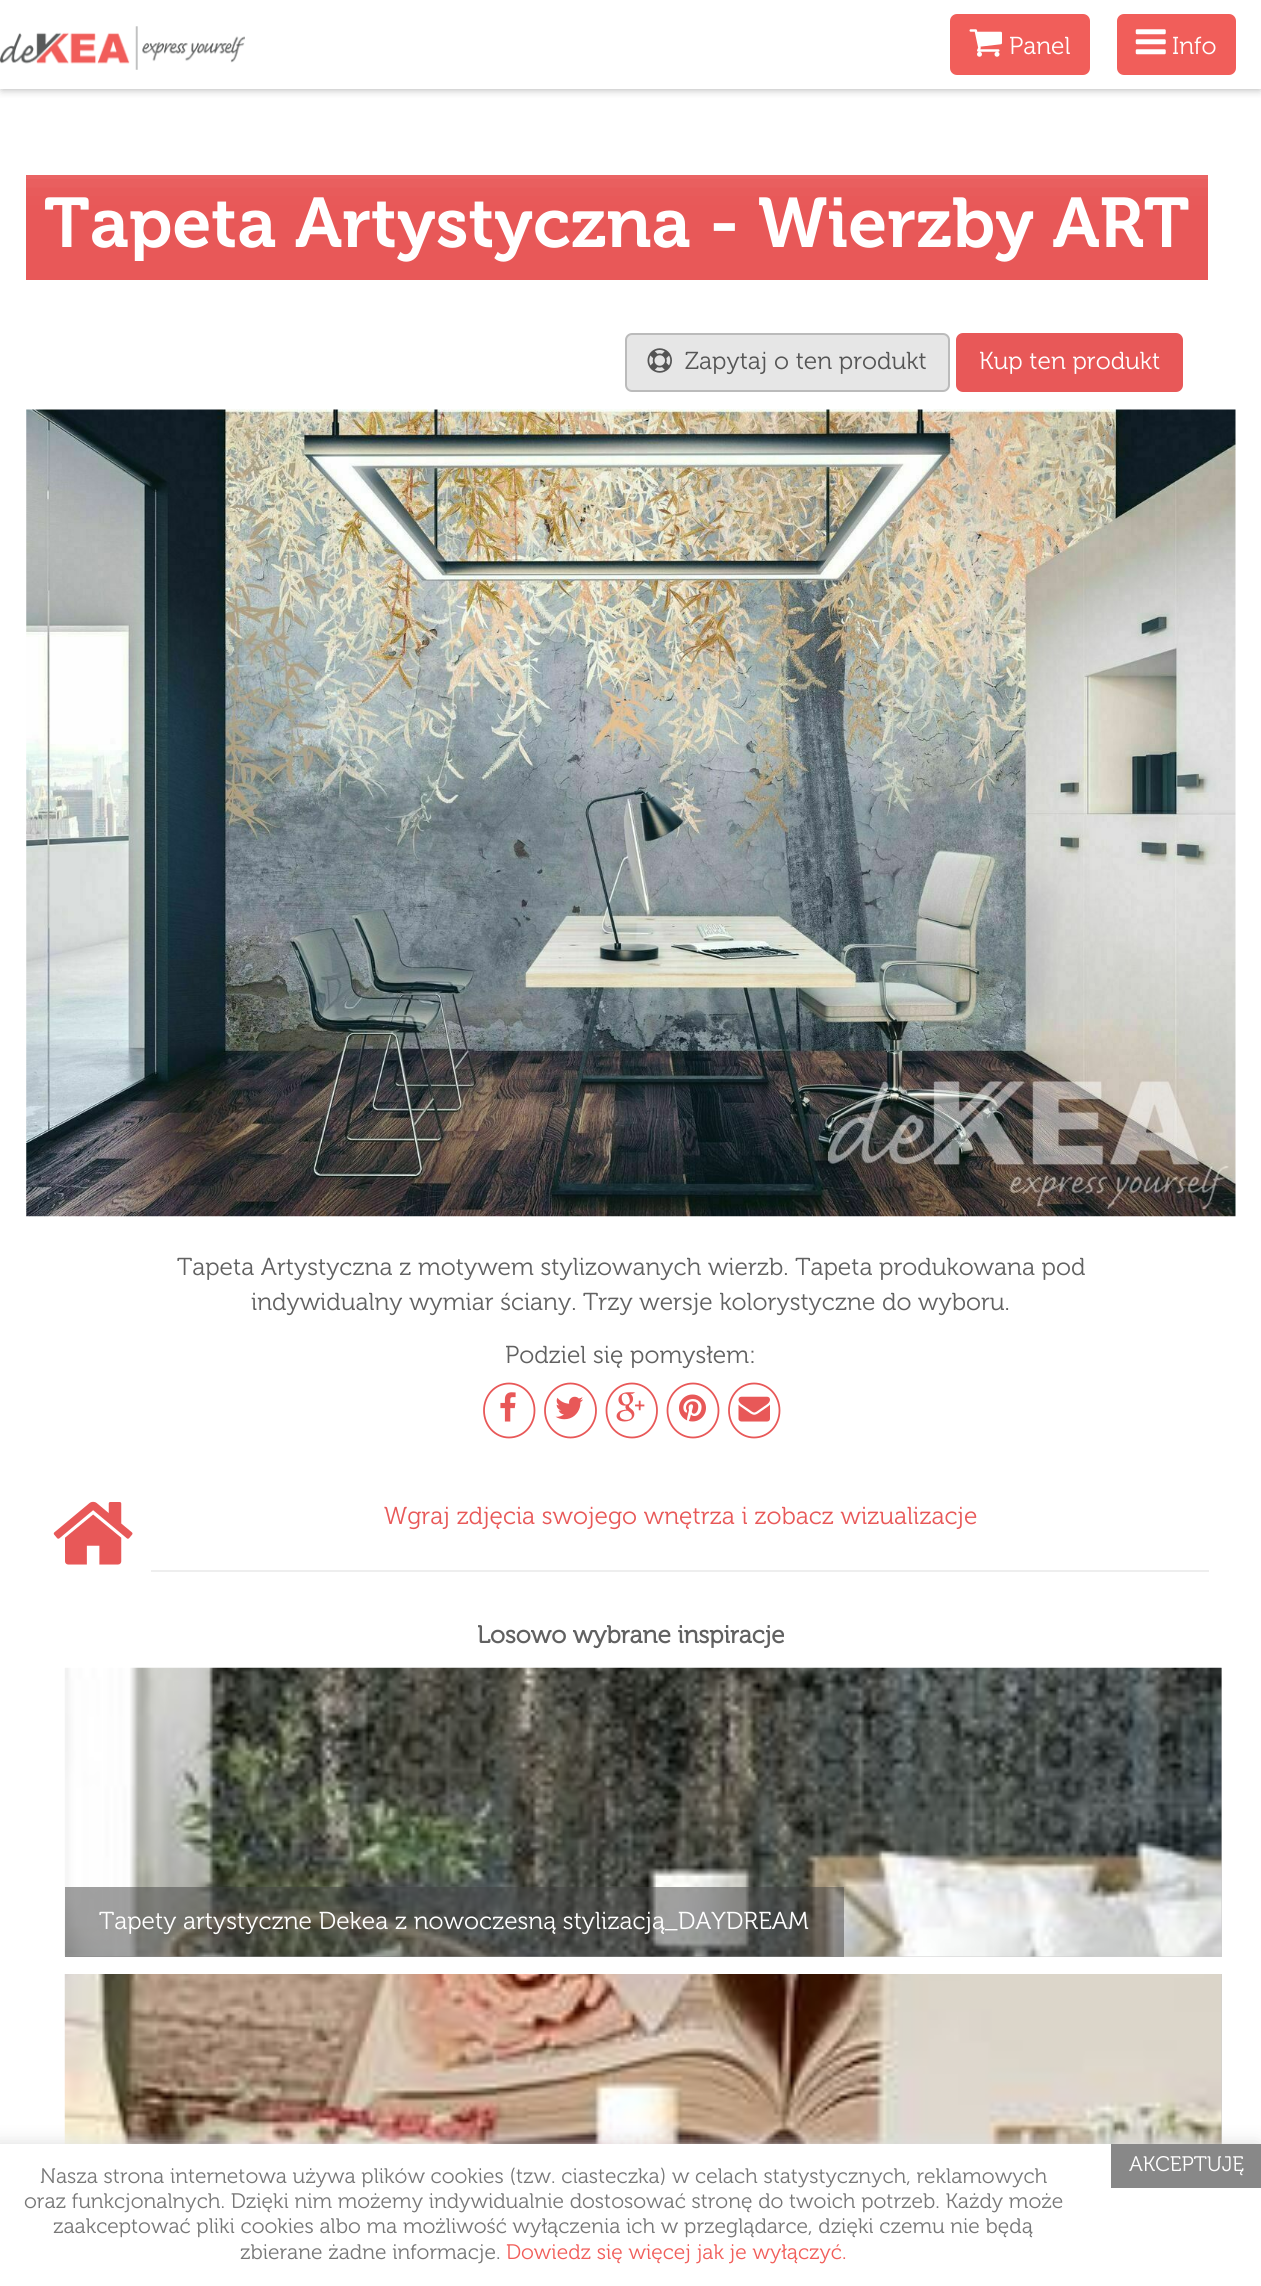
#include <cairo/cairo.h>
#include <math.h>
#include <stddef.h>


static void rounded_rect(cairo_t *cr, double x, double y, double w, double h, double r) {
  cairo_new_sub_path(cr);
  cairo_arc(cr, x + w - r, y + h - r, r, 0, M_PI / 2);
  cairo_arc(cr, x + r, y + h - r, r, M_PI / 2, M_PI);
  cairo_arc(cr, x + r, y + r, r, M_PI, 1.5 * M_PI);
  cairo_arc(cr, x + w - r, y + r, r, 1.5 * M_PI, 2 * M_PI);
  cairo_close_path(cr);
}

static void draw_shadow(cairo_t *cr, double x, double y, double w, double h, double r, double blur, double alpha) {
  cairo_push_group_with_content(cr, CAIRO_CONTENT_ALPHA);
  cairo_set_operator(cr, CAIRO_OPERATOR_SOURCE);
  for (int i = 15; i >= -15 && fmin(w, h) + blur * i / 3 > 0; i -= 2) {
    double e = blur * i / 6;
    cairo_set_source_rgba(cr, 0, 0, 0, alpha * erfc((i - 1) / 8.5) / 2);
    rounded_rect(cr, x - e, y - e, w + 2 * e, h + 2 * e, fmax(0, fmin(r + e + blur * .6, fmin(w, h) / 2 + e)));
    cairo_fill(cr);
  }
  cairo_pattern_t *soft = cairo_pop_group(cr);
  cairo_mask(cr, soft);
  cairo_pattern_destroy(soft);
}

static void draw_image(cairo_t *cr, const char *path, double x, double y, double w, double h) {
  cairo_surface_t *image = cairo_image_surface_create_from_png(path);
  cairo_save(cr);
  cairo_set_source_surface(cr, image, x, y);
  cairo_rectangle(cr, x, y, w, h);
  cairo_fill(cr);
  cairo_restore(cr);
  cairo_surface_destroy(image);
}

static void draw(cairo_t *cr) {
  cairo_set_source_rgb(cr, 1, 1, 1);
  cairo_paint(cr);
  cairo_set_source_rgb(cr, 232 / 255.0, 88 / 255.0, 88 / 255.0);
  cairo_rectangle(cr, 26, 175, 1182, 105);
  cairo_fill(cr);
  cairo_save(cr);
  cairo_set_fill_rule(cr, CAIRO_FILL_RULE_EVEN_ODD);
  cairo_new_path(cr);
  cairo_move_to(cr, 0, 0);
  cairo_line_to(cr, 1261, 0);
  cairo_line_to(cr, 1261, 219);
  cairo_line_to(cr, 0, 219);
  cairo_close_path(cr);
  cairo_move_to(cr, 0, 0);
  cairo_line_to(cr, 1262, 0);
  cairo_line_to(cr, 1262, 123);
  cairo_line_to(cr, 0, 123);
  cairo_close_path(cr);
  cairo_clip(cr);
  cairo_set_source_rgb(cr, 1, 1, 1);
  draw_shadow(cr, 0, 18, 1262, 122, 0, 26, 0.83);
  cairo_restore(cr);
  cairo_save(cr);
  cairo_rectangle(cr, 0, 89, 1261, 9);
  cairo_clip(cr);
  cairo_set_source_rgb(cr, 170 / 255.0, 170 / 255.0, 170 / 255.0);
  draw_shadow(cr, 2, 4, 1258, 85, 0, 4.5, 1);
  cairo_restore(cr);
  draw_image(cr, "images/1.png", 0, 26, 245, 44);
  cairo_set_source_rgb(cr, 241 / 255.0, 94 / 255.0, 90 / 255.0);
  rounded_rect(cr, 951, 15, 138, 59, 6);
  cairo_fill_preserve(cr);
  cairo_stroke(cr);
  draw_image(cr, "images/2.png", 969, 29, 33, 28);
  rounded_rect(cr, 1118, 15, 117, 59, 6);
  cairo_fill_preserve(cr);
  cairo_stroke(cr);
  draw_image(cr, "images/3.png", 1135, 29, 31, 26);
  cairo_set_source_rgb(cr, 230 / 255.0, 230 / 255.0, 230 / 255.0);
  rounded_rect(cr, 626, 334, 323, 57, 6);
  cairo_fill_preserve(cr);
  cairo_set_source_rgb(cr, 187 / 255.0, 187 / 255.0, 187 / 255.0);
  cairo_stroke(cr);
  draw_image(cr, "images/4.png", 647, 348, 25, 25);
  cairo_set_source_rgb(cr, 232 / 255.0, 88 / 255.0, 88 / 255.0);
  rounded_rect(cr, 957, 334, 225, 57, 6);
  cairo_fill_preserve(cr);
  cairo_stroke(cr);
  draw_image(cr, "images/5.png", 26, 409, 1210, 808);
  cairo_new_path(cr);
  cairo_move_to(cr, 509, 1383.5);
  cairo_curve_to(cr, 523.5, 1383.5, 534.5, 1395.5, 534.5, 1410.5);
  cairo_curve_to(cr, 534.5, 1425.5, 523.5, 1437.5, 509, 1437.5);
  cairo_curve_to(cr, 495, 1437.5, 484, 1425.5, 484, 1410.5);
  cairo_curve_to(cr, 484, 1395.5, 495, 1383.5, 509, 1383.5);
  cairo_close_path(cr);
  cairo_set_line_width(cr, 1.8);
  cairo_stroke(cr);
  draw_image(cr, "images/6.png", 500, 1392, 16, 30);
  cairo_new_path(cr);
  cairo_move_to(cr, 570.5, 1383.5);
  cairo_curve_to(cr, 584.5, 1383.5, 596, 1395.5, 596, 1410.5);
  cairo_curve_to(cr, 596, 1425.5, 584.5, 1437.5, 570.5, 1437.5);
  cairo_curve_to(cr, 556.5, 1437.5, 545, 1425.5, 545, 1410.5);
  cairo_curve_to(cr, 545, 1395.5, 556.5, 1383.5, 570.5, 1383.5);
  cairo_close_path(cr);
  cairo_stroke(cr);
  draw_image(cr, "images/7.png", 555, 1396, 28, 24);
  cairo_new_path(cr);
  cairo_move_to(cr, 632, 1383.5);
  cairo_curve_to(cr, 646, 1383.5, 657, 1395.5, 657, 1410.5);
  cairo_curve_to(cr, 657, 1425.5, 646, 1437.5, 632, 1437.5);
  cairo_curve_to(cr, 617.5, 1437.5, 606.5, 1425.5, 606.5, 1410.5);
  cairo_curve_to(cr, 606.5, 1395.5, 617.5, 1383.5, 632, 1383.5);
  cairo_close_path(cr);
  cairo_stroke(cr);
  draw_image(cr, "images/8.png", 616, 1392, 29, 30);
  cairo_new_path(cr);
  cairo_move_to(cr, 693, 1383.5);
  cairo_curve_to(cr, 707, 1383.5, 718.5, 1395.5, 718.5, 1410.5);
  cairo_curve_to(cr, 718.5, 1425.5, 707, 1437.5, 693, 1437.5);
  cairo_curve_to(cr, 679, 1437.5, 667.5, 1425.5, 667.5, 1410.5);
  cairo_curve_to(cr, 667.5, 1395.5, 679, 1383.5, 693, 1383.5);
  cairo_close_path(cr);
  cairo_stroke(cr);
  draw_image(cr, "images/9.png", 679, 1394, 27, 28);
  cairo_new_path(cr);
  cairo_move_to(cr, 754, 1383.5);
  cairo_curve_to(cr, 768.5, 1383.5, 779.5, 1395.5, 779.5, 1410.5);
  cairo_curve_to(cr, 779.5, 1425.5, 768.5, 1437.5, 754, 1437.5);
  cairo_curve_to(cr, 740, 1437.5, 729, 1425.5, 729, 1410.5);
  cairo_curve_to(cr, 729, 1395.5, 740, 1383.5, 754, 1383.5);
  cairo_close_path(cr);
  cairo_stroke(cr);
  draw_image(cr, "images/10.png", 738, 1396, 32, 26);
  draw_image(cr, "images/11.png", 53, 1501, 80, 64);
  cairo_set_source_rgb(cr, 238 / 255.0, 238 / 255.0, 238 / 255.0);
  cairo_rectangle(cr, 151, 1570, 1058, 2);
  cairo_fill(cr);
  cairo_set_source_rgb(cr, 204 / 255.0, 204 / 255.0, 204 / 255.0);
  cairo_rectangle(cr, 65, 1668, 1157, 289);
  cairo_fill(cr);
  draw_image(cr, "images/12.png", 64, 1667, 1158, 290);
  cairo_set_source_rgba(cr, 66 / 255.0, 66 / 255.0, 66 / 255.0, 0.5);
  cairo_rectangle(cr, 65, 1887, 779, 70);
  cairo_fill(cr);
  cairo_set_source_rgb(cr, 204 / 255.0, 204 / 255.0, 204 / 255.0);
  cairo_rectangle(cr, 1221, 1974, 1, 170);
  cairo_fill(cr);
  draw_image(cr, "images/13.png", 64, 1974, 1158, 170);
  cairo_set_source_rgb(cr, 221 / 255.0, 221 / 255.0, 221 / 255.0);
  draw_shadow(cr, -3, 2144, 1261, 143, 0, 9, 1);
  cairo_set_source_rgb(cr, 1, 1, 1);
  cairo_rectangle(cr, 0, 2144, 1261, 142);
  cairo_fill(cr);
  cairo_set_source_rgb(cr, 136 / 255.0, 136 / 255.0, 136 / 255.0);
  cairo_rectangle(cr, 1111, 2144, 150, 44);
  cairo_fill(cr);
  cairo_select_font_face(cr, "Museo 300", CAIRO_FONT_SLANT_NORMAL, CAIRO_FONT_WEIGHT_NORMAL);
  cairo_set_font_size(cr, 24.5);
  cairo_set_source_rgb(cr, 1, 1, 1);
  cairo_move_to(cr, 1009, 54);
  cairo_show_text(cr, "Panel");
  cairo_move_to(cr, 1172, 54);
  cairo_show_text(cr, "Info");
  cairo_select_font_face(cr, "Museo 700", CAIRO_FONT_SLANT_NORMAL, CAIRO_FONT_WEIGHT_NORMAL);
  cairo_set_font_size(cr, 70);
  cairo_move_to(cr, 44, 247);
  cairo_show_text(cr, "Tapeta Artystyczna - Wierzby ART");
  cairo_select_font_face(cr, "Museo 300", CAIRO_FONT_SLANT_NORMAL, CAIRO_FONT_WEIGHT_NORMAL);
  cairo_set_font_size(cr, 24.5);
  cairo_set_source_rgb(cr, 85 / 255.0, 85 / 255.0, 85 / 255.0);
  cairo_move_to(cr, 685, 369);
  cairo_show_text(cr, "Zapytaj o ten produkt");
  cairo_set_source_rgb(cr, 1, 1, 1);
  cairo_move_to(cr, 979, 369);
  cairo_show_text(cr, "Kup ten produkt");
  cairo_set_source_rgb(cr, 97 / 255.0, 97 / 255.0, 97 / 255.0);
  cairo_move_to(cr, 177, 1275);
  cairo_show_text(cr, "Tapeta Artystyczna z motywem stylizowanych wierzb. Tapeta produkowana pod");
  cairo_move_to(cr, 251, 1310);
  cairo_show_text(cr, "indywidualny wymiar ściany. Trzy wersje kolorystyczne do wyboru.");
  cairo_move_to(cr, 505, 1363);
  cairo_show_text(cr, "Podziel się pomysłem:");
  cairo_set_source_rgb(cr, 232 / 255.0, 88 / 255.0, 88 / 255.0);
  cairo_move_to(cr, 384, 1524);
  cairo_show_text(cr, "Wgraj zdjęcia swojego wnętrza i zobacz wizualizacje");
  cairo_select_font_face(cr, "Museo 300", CAIRO_FONT_SLANT_NORMAL, CAIRO_FONT_WEIGHT_BOLD);
  cairo_set_source_rgb(cr, 97 / 255.0, 97 / 255.0, 97 / 255.0);
  cairo_move_to(cr, 477, 1643);
  cairo_show_text(cr, "Losowo wybrane inspiracje");
  cairo_select_font_face(cr, "Museo 300", CAIRO_FONT_SLANT_NORMAL, CAIRO_FONT_WEIGHT_NORMAL);
  cairo_set_source_rgb(cr, 1, 1, 1);
  cairo_move_to(cr, 99, 1929);
  cairo_show_text(cr, "Tapety artystyczne Dekea z nowoczesną stylizacją_DAYDREAM");
  cairo_set_font_size(cr, 21);
  cairo_set_source_rgb(cr, 119 / 255.0, 119 / 255.0, 119 / 255.0);
  cairo_move_to(cr, 40, 2183);
  cairo_show_text(cr, "Nasza strona internetowa używa plików cookies (tzw. ciasteczka) w celach statystycznych, reklamowych");
  cairo_move_to(cr, 24, 2208);
  cairo_show_text(cr, "oraz funkcjonalnych. Dzięki nim możemy indywidualnie dostosować stronę do twoich potrzeb. Każdy może");
  cairo_move_to(cr, 53, 2233);
  cairo_show_text(cr, "zaakceptować pliki cookies albo ma możliwość wyłączenia ich w przeglądarce, dzięki czemu nie będą");
  cairo_move_to(cr, 240, 2259);
  cairo_show_text(cr, "zbierane żadne informacje.");
  cairo_set_source_rgb(cr, 241 / 255.0, 94 / 255.0, 90 / 255.0);
  cairo_move_to(cr, 506, 2259);
  cairo_show_text(cr, "Dowiedz się więcej jak je wyłączyć.");
  cairo_set_source_rgb(cr, 1, 1, 1);
  cairo_move_to(cr, 1129, 2171);
  cairo_show_text(cr, "AKCEPTUJĘ");
}

int main(void) {
  cairo_surface_t *surface = cairo_image_surface_create(CAIRO_FORMAT_RGB24, 1261, 2286);
  cairo_t *cr = cairo_create(surface);
  cairo_font_options_t *options = cairo_font_options_create();
  cairo_font_options_set_hint_metrics(options, CAIRO_HINT_METRICS_OFF);
  cairo_font_options_set_hint_style(options, CAIRO_HINT_STYLE_NONE);
  cairo_set_font_options(cr, options);
  cairo_set_miter_limit(cr, 4);
  draw(cr);
  cairo_surface_write_to_png(surface, "out.png");
  cairo_font_options_destroy(options);
  cairo_destroy(cr);
  cairo_surface_destroy(surface);
  return 0;
}
